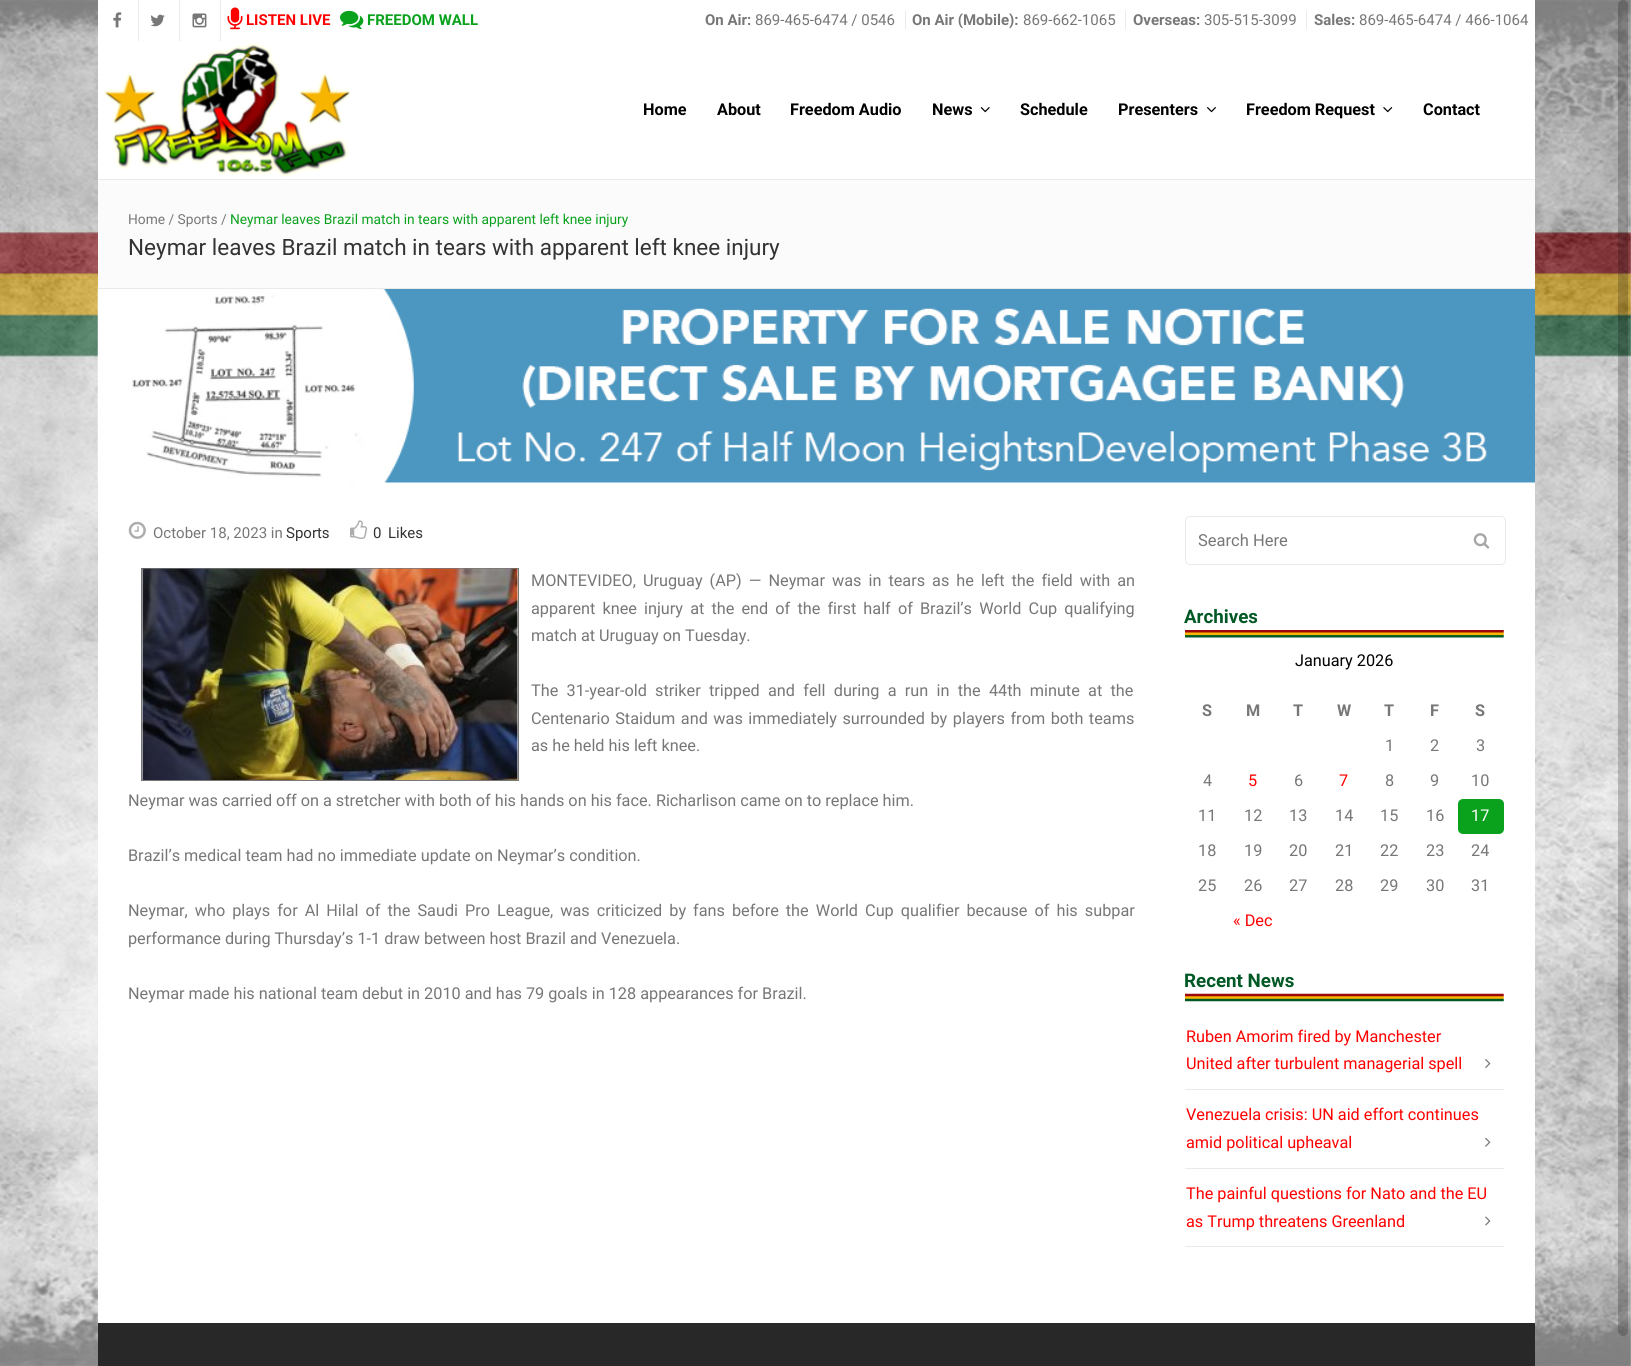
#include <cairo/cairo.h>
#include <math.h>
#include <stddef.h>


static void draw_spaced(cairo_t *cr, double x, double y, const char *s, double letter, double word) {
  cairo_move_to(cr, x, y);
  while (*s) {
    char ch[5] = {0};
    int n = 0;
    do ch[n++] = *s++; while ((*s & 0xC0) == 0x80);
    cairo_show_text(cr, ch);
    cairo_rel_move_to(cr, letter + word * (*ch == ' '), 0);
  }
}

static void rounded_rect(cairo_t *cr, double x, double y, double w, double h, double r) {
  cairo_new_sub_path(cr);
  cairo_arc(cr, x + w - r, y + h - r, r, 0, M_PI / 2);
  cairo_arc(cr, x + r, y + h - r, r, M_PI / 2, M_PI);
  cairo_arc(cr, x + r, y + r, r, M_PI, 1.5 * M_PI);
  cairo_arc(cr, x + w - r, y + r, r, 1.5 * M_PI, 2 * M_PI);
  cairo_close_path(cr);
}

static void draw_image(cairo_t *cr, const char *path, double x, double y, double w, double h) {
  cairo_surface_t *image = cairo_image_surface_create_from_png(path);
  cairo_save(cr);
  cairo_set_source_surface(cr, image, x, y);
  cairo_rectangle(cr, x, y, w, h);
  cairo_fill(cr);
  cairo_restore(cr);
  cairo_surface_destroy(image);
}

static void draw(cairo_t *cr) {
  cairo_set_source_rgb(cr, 1, 1, 1);
  cairo_paint(cr);
  draw_image(cr, "images/1.png", 0, 0, 1631, 1366);
  cairo_set_source_rgb(cr, 1, 1, 1);
  cairo_rectangle(cr, 98, 0, 1437, 179);
  cairo_fill(cr);
  cairo_set_source_rgb(cr, 234 / 255.0, 234 / 255.0, 234 / 255.0);
  cairo_rectangle(cr, 138, 0, 1, 41);
  cairo_fill(cr);
  draw_image(cr, "images/2.png", 113, 12, 9, 16);
  cairo_rectangle(cr, 179, 0, 1, 41);
  cairo_fill(cr);
  draw_image(cr, "images/3.png", 150, 14, 15, 13);
  cairo_rectangle(cr, 220, 0, 1, 41);
  cairo_fill(cr);
  draw_image(cr, "images/4.png", 192, 13, 15, 15);
  draw_image(cr, "images/5.png", 227, 7, 16, 23);
  draw_image(cr, "images/6.png", 340, 10, 24, 20);
  cairo_rectangle(cr, 905, 11, 1, 18);
  cairo_fill(cr);
  cairo_rectangle(cr, 1125, 11, 1, 18);
  cairo_fill(cr);
  cairo_rectangle(cr, 1306, 11, 1, 18);
  cairo_fill(cr);
  cairo_rectangle(cr, 98, 179, 1437, 1);
  cairo_fill(cr);
  draw_image(cr, "images/7.png", 104, 43, 247, 134);
  draw_image(cr, "images/8.png", 980, 107, 10, 6);
  draw_image(cr, "images/9.png", 1207, 107, 9, 6);
  draw_image(cr, "images/10.png", 1383, 107, 10, 6);
  cairo_set_source_rgb(cr, 1, 1, 1);
  cairo_rectangle(cr, 98, 482, 1437, 841);
  cairo_fill(cr);
  cairo_set_source_rgb(cr, 251 / 255.0, 251 / 255.0, 251 / 255.0);
  cairo_rectangle(cr, 98, 180, 1437, 108);
  cairo_fill(cr);
  draw_image(cr, "images/11.png", 97, 288, 1438, 195);
  cairo_set_source_rgb(cr, 234 / 255.0, 234 / 255.0, 234 / 255.0);
  cairo_rectangle(cr, 98, 288, 1437, 1);
  cairo_fill(cr);
  draw_image(cr, "images/12.png", 128, 521, 18, 18);
  draw_image(cr, "images/13.png", 350, 520, 18, 19);
  cairo_rectangle(cr, 141.5, 568.5, 377, 212);
  cairo_set_source_rgb(cr, 119 / 255.0, 119 / 255.0, 119 / 255.0);
  cairo_set_line_width(cr, 1);
  cairo_stroke(cr);
  draw_image(cr, "images/14.png", 142, 568, 376, 212);
  rounded_rect(cr, 1185.5, 516.5, 320, 48, 4.5);
  cairo_set_source_rgb(cr, 234 / 255.0, 234 / 255.0, 234 / 255.0);
  cairo_stroke(cr);
  draw_image(cr, "images/15.png", 1473, 533, 17, 16);
  draw_image(cr, "images/16.png", 1185, 630, 319, 8);
  cairo_set_source_rgb(cr, 10 / 255.0, 162 / 255.0, 29 / 255.0);
  rounded_rect(cr, 1458, 799, 46, 35, 5);
  cairo_fill(cr);
  draw_image(cr, "images/17.png", 1185, 993, 319, 9);
  cairo_set_source_rgb(cr, 234 / 255.0, 234 / 255.0, 234 / 255.0);
  cairo_rectangle(cr, 1185, 1089, 319, 1);
  cairo_fill(cr);
  draw_image(cr, "images/18.png", 1485, 1059, 6, 9);
  cairo_rectangle(cr, 1185, 1168, 319, 1);
  cairo_fill(cr);
  draw_image(cr, "images/19.png", 1485, 1137, 6, 10);
  cairo_rectangle(cr, 1185, 1246, 319, 1);
  cairo_fill(cr);
  draw_image(cr, "images/20.png", 1485, 1216, 6, 10);
  cairo_set_source_rgb(cr, 40 / 255.0, 40 / 255.0, 40 / 255.0);
  cairo_rectangle(cr, 98, 1323, 1437, 43);
  cairo_fill(cr);
  cairo_set_source_rgba(cr, 0, 0, 0, 0.2);
  rounded_rect(cr, 1618, 0, 10, 1336, 5);
  cairo_fill(cr);
  cairo_select_font_face(cr, "Roboto", CAIRO_FONT_SLANT_NORMAL, CAIRO_FONT_WEIGHT_BOLD);
  cairo_set_font_size(cr, 15);
  cairo_set_source_rgb(cr, 1, 0, 0);
  cairo_move_to(cr, 246, 25);
  cairo_show_text(cr, "LISTEN LIVE");
  cairo_set_source_rgb(cr, 10 / 255.0, 162 / 255.0, 29 / 255.0);
  cairo_move_to(cr, 367, 25);
  cairo_show_text(cr, "FREEDOM WALL");
  cairo_set_source_rgb(cr, 119 / 255.0, 119 / 255.0, 119 / 255.0);
  cairo_move_to(cr, 705, 25);
  cairo_show_text(cr, "On Air:");
  cairo_select_font_face(cr, "Roboto", CAIRO_FONT_SLANT_NORMAL, CAIRO_FONT_WEIGHT_NORMAL);
  cairo_move_to(cr, 755, 25);
  cairo_show_text(cr, "869-465-6474 / 0546");
  cairo_select_font_face(cr, "Roboto", CAIRO_FONT_SLANT_NORMAL, CAIRO_FONT_WEIGHT_BOLD);
  cairo_move_to(cr, 912, 25);
  cairo_show_text(cr, "On Air (Mobile):");
  cairo_select_font_face(cr, "Roboto", CAIRO_FONT_SLANT_NORMAL, CAIRO_FONT_WEIGHT_NORMAL);
  cairo_move_to(cr, 1023, 25);
  cairo_show_text(cr, "869-662-1065");
  cairo_select_font_face(cr, "Roboto", CAIRO_FONT_SLANT_NORMAL, CAIRO_FONT_WEIGHT_BOLD);
  cairo_move_to(cr, 1133, 25);
  cairo_show_text(cr, "Overseas:");
  cairo_select_font_face(cr, "Roboto", CAIRO_FONT_SLANT_NORMAL, CAIRO_FONT_WEIGHT_NORMAL);
  cairo_move_to(cr, 1204, 25);
  cairo_show_text(cr, "305-515-3099");
  cairo_select_font_face(cr, "Roboto", CAIRO_FONT_SLANT_NORMAL, CAIRO_FONT_WEIGHT_BOLD);
  cairo_move_to(cr, 1314, 25);
  cairo_show_text(cr, "Sales:");
  cairo_select_font_face(cr, "Roboto", CAIRO_FONT_SLANT_NORMAL, CAIRO_FONT_WEIGHT_NORMAL);
  cairo_move_to(cr, 1359, 25);
  cairo_show_text(cr, "869-465-6474 / 466-1064");
  cairo_select_font_face(cr, "Roboto", CAIRO_FONT_SLANT_NORMAL, CAIRO_FONT_WEIGHT_BOLD);
  cairo_set_font_size(cr, 16.25);
  cairo_set_source_rgb(cr, 0, 0, 0);
  cairo_move_to(cr, 643, 115);
  cairo_show_text(cr, "Home");
  cairo_move_to(cr, 717, 115);
  cairo_show_text(cr, "About");
  cairo_move_to(cr, 790, 115);
  cairo_show_text(cr, "Freedom Audio");
  cairo_move_to(cr, 932, 115);
  cairo_show_text(cr, "News");
  cairo_move_to(cr, 1020, 115);
  cairo_show_text(cr, "Schedule");
  cairo_move_to(cr, 1118, 115);
  cairo_show_text(cr, "Presenters");
  cairo_move_to(cr, 1246, 115);
  cairo_show_text(cr, "Freedom Request");
  cairo_move_to(cr, 1423, 115);
  cairo_show_text(cr, "Contact");
  cairo_select_font_face(cr, "Roboto", CAIRO_FONT_SLANT_NORMAL, CAIRO_FONT_WEIGHT_NORMAL);
  cairo_set_font_size(cr, 13.75);
  cairo_set_source_rgb(cr, 119 / 255.0, 119 / 255.0, 119 / 255.0);
  cairo_move_to(cr, 128, 224);
  cairo_show_text(cr, "Home / Sports /");
  cairo_set_source_rgb(cr, 10 / 255.0, 162 / 255.0, 29 / 255.0);
  cairo_move_to(cr, 230, 224);
  cairo_show_text(cr, "Neymar leaves Brazil match in tears with apparent left knee injury");
  cairo_set_font_size(cr, 22.5);
  cairo_set_source_rgb(cr, 51 / 255.0, 51 / 255.0, 51 / 255.0);
  cairo_move_to(cr, 128, 255);
  cairo_show_text(cr, "Neymar leaves Brazil match in tears with apparent left knee injury");
  cairo_set_font_size(cr, 15);
  cairo_set_source_rgb(cr, 119 / 255.0, 119 / 255.0, 119 / 255.0);
  cairo_move_to(cr, 153, 538);
  cairo_show_text(cr, "October 18, 2023 in");
  cairo_set_source_rgb(cr, 51 / 255.0, 51 / 255.0, 51 / 255.0);
  cairo_move_to(cr, 286, 538);
  cairo_show_text(cr, "Sports");
  cairo_move_to(cr, 373, 538);
  cairo_show_text(cr, "0");
  cairo_move_to(cr, 388, 538);
  cairo_show_text(cr, "Likes");
  cairo_set_font_size(cr, 16.25);
  cairo_set_source_rgb(cr, 119 / 255.0, 119 / 255.0, 119 / 255.0);
  draw_spaced(cr, 531, 586, "MONTEVIDEO, Uruguay (AP) — Neymar was in tears as he left the field with an", 0, 3);
  draw_spaced(cr, 531, 614, "apparent knee injury at the end of the first half of Brazil’s World Cup qualifying", 0, 3.1);
  cairo_move_to(cr, 531, 641);
  cairo_show_text(cr, "match at Uruguay on Tuesday.");
  draw_spaced(cr, 531, 696, "The 31-year-old striker tripped and fell during a run in the 44th minute at the", 0, 4.25);
  draw_spaced(cr, 531, 724, "Centenario Staidum and was immediately surrounded by players from both teams", 0, 1.5);
  cairo_move_to(cr, 531, 751);
  cairo_show_text(cr, "as he held his left knee.");
  cairo_move_to(cr, 128, 806);
  cairo_show_text(cr, "Neymar was carried off on a stretcher with both of his hands on his face. Richarlison came on to replace him.");
  cairo_move_to(cr, 128, 861);
  cairo_show_text(cr, "Brazil’s medical team had no immediate update on Neymar’s condition.");
  draw_spaced(cr, 128, 916, "Neymar, who plays for Al Hilal of the Saudi Pro League, was criticized by fans before the World Cup qualifier because of his subpar", 0, 3);
  cairo_move_to(cr, 128, 944);
  cairo_show_text(cr, "performance during Thursday’s 1-1 draw between host Brazil and Venezuela.");
  cairo_move_to(cr, 128, 999);
  cairo_show_text(cr, "Neymar made his national team debut in 2010 and has 79 goals in 128 appearances for Brazil.");
  cairo_set_font_size(cr, 16.5);
  cairo_move_to(cr, 1198, 546);
  cairo_show_text(cr, "Search Here");
  cairo_select_font_face(cr, "Roboto", CAIRO_FONT_SLANT_NORMAL, CAIRO_FONT_WEIGHT_BOLD);
  cairo_set_font_size(cr, 18.75);
  cairo_set_source_rgb(cr, 0, 88 / 255.0, 37 / 255.0);
  cairo_move_to(cr, 1184, 623);
  cairo_show_text(cr, "Archives");
  cairo_select_font_face(cr, "Roboto", CAIRO_FONT_SLANT_NORMAL, CAIRO_FONT_WEIGHT_NORMAL);
  cairo_set_font_size(cr, 16.25);
  cairo_set_source_rgb(cr, 0, 0, 0);
  cairo_move_to(cr, 1295, 666);
  cairo_show_text(cr, "January 2026");
  cairo_select_font_face(cr, "Roboto", CAIRO_FONT_SLANT_NORMAL, CAIRO_FONT_WEIGHT_BOLD);
  cairo_set_source_rgb(cr, 119 / 255.0, 119 / 255.0, 119 / 255.0);
  cairo_move_to(cr, 1202, 716);
  cairo_show_text(cr, "S");
  cairo_move_to(cr, 1246, 716);
  cairo_show_text(cr, "M");
  cairo_move_to(cr, 1293, 716);
  cairo_show_text(cr, "T");
  cairo_move_to(cr, 1337, 716);
  cairo_show_text(cr, "W");
  cairo_move_to(cr, 1384, 716);
  cairo_show_text(cr, "T");
  cairo_move_to(cr, 1430, 716);
  cairo_show_text(cr, "F");
  cairo_move_to(cr, 1475, 716);
  cairo_show_text(cr, "S");
  cairo_select_font_face(cr, "Roboto", CAIRO_FONT_SLANT_NORMAL, CAIRO_FONT_WEIGHT_NORMAL);
  cairo_move_to(cr, 1385, 751);
  cairo_show_text(cr, "1");
  cairo_move_to(cr, 1430, 751);
  cairo_show_text(cr, "2");
  cairo_move_to(cr, 1476, 751);
  cairo_show_text(cr, "3");
  cairo_move_to(cr, 1203, 786);
  cairo_show_text(cr, "4");
  cairo_set_source_rgb(cr, 1, 0, 0);
  cairo_move_to(cr, 1248, 786);
  cairo_show_text(cr, "5");
  cairo_set_source_rgb(cr, 119 / 255.0, 119 / 255.0, 119 / 255.0);
  cairo_move_to(cr, 1294, 786);
  cairo_show_text(cr, "6");
  cairo_set_source_rgb(cr, 1, 0, 0);
  cairo_move_to(cr, 1339, 786);
  cairo_show_text(cr, "7");
  cairo_set_source_rgb(cr, 119 / 255.0, 119 / 255.0, 119 / 255.0);
  cairo_move_to(cr, 1385, 786);
  cairo_show_text(cr, "8");
  cairo_move_to(cr, 1430, 786);
  cairo_show_text(cr, "9");
  cairo_move_to(cr, 1471, 786);
  cairo_show_text(cr, "10");
  cairo_move_to(cr, 1198, 821);
  cairo_show_text(cr, "11");
  cairo_move_to(cr, 1244, 821);
  cairo_show_text(cr, "12");
  cairo_move_to(cr, 1289, 821);
  cairo_show_text(cr, "13");
  cairo_move_to(cr, 1335, 821);
  cairo_show_text(cr, "14");
  cairo_move_to(cr, 1380, 821);
  cairo_show_text(cr, "15");
  cairo_move_to(cr, 1426, 821);
  cairo_show_text(cr, "16");
  cairo_set_source_rgb(cr, 1, 1, 1);
  cairo_move_to(cr, 1471, 821);
  cairo_show_text(cr, "17");
  cairo_set_source_rgb(cr, 119 / 255.0, 119 / 255.0, 119 / 255.0);
  cairo_move_to(cr, 1198, 856);
  cairo_show_text(cr, "18");
  cairo_move_to(cr, 1244, 856);
  cairo_show_text(cr, "19");
  cairo_move_to(cr, 1289, 856);
  cairo_show_text(cr, "20");
  cairo_move_to(cr, 1335, 856);
  cairo_show_text(cr, "21");
  cairo_move_to(cr, 1380, 856);
  cairo_show_text(cr, "22");
  cairo_move_to(cr, 1426, 856);
  cairo_show_text(cr, "23");
  cairo_move_to(cr, 1471, 856);
  cairo_show_text(cr, "24");
  cairo_move_to(cr, 1198, 891);
  cairo_show_text(cr, "25");
  cairo_move_to(cr, 1244, 891);
  cairo_show_text(cr, "26");
  cairo_move_to(cr, 1289, 891);
  cairo_show_text(cr, "27");
  cairo_move_to(cr, 1335, 891);
  cairo_show_text(cr, "28");
  cairo_move_to(cr, 1380, 891);
  cairo_show_text(cr, "29");
  cairo_move_to(cr, 1426, 891);
  cairo_show_text(cr, "30");
  cairo_move_to(cr, 1471, 891);
  cairo_show_text(cr, "31");
  cairo_set_source_rgb(cr, 1, 0, 0);
  cairo_move_to(cr, 1233, 926);
  cairo_show_text(cr, "« Dec");
  cairo_select_font_face(cr, "Roboto", CAIRO_FONT_SLANT_NORMAL, CAIRO_FONT_WEIGHT_BOLD);
  cairo_set_font_size(cr, 18.75);
  cairo_set_source_rgb(cr, 0, 88 / 255.0, 37 / 255.0);
  cairo_move_to(cr, 1184, 987);
  cairo_show_text(cr, "Recent News");
  cairo_select_font_face(cr, "Roboto", CAIRO_FONT_SLANT_NORMAL, CAIRO_FONT_WEIGHT_NORMAL);
  cairo_set_font_size(cr, 16.25);
  cairo_set_source_rgb(cr, 1, 0, 0);
  cairo_move_to(cr, 1186, 1042);
  cairo_show_text(cr, "Ruben Amorim fired by Manchester");
  cairo_move_to(cr, 1186, 1069);
  cairo_show_text(cr, "United after turbulent managerial spell");
  cairo_move_to(cr, 1186, 1120);
  cairo_show_text(cr, "Venezuela crisis: UN aid effort continues");
  cairo_move_to(cr, 1186, 1148);
  cairo_show_text(cr, "amid political upheaval");
  cairo_move_to(cr, 1186, 1199);
  cairo_show_text(cr, "The painful questions for Nato and the EU");
  cairo_move_to(cr, 1186, 1227);
  cairo_show_text(cr, "as Trump threatens Greenland");
}

int main(void) {
  cairo_surface_t *surface = cairo_image_surface_create(CAIRO_FORMAT_RGB24, 1631, 1366);
  cairo_t *cr = cairo_create(surface);
  cairo_font_options_t *options = cairo_font_options_create();
  cairo_font_options_set_hint_metrics(options, CAIRO_HINT_METRICS_OFF);
  cairo_font_options_set_hint_style(options, CAIRO_HINT_STYLE_NONE);
  cairo_set_font_options(cr, options);
  cairo_set_miter_limit(cr, 4);
  draw(cr);
  cairo_surface_write_to_png(surface, "out.png");
  cairo_font_options_destroy(options);
  cairo_destroy(cr);
  cairo_surface_destroy(surface);
  return 0;
}
